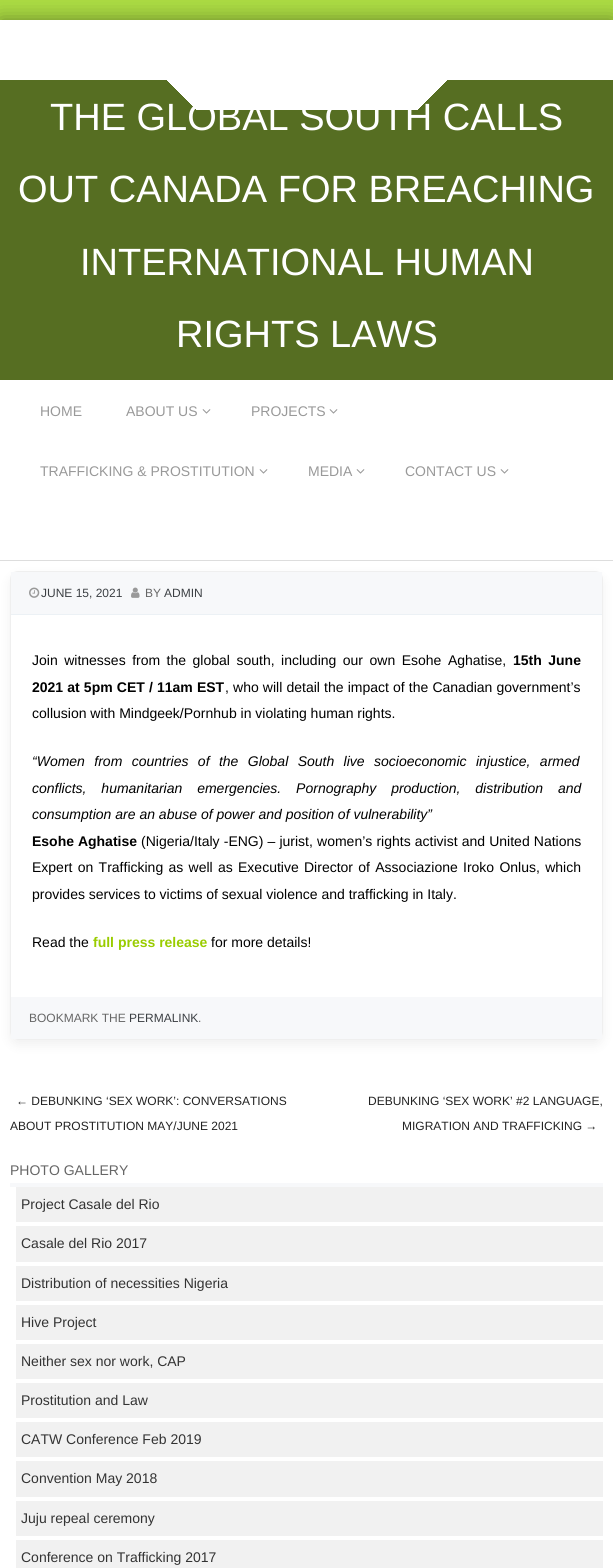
#include <cairo/cairo.h>
#include <math.h>
#include <stddef.h>


static void draw_spaced(cairo_t *cr, double x, double y, const char *s, double letter, double word) {
  cairo_move_to(cr, x, y);
  while (*s) {
    char ch[5] = {0};
    int n = 0;
    do ch[n++] = *s++; while ((*s & 0xC0) == 0x80);
    cairo_show_text(cr, ch);
    cairo_rel_move_to(cr, letter + word * (*ch == ' '), 0);
  }
}

static void rounded_rect(cairo_t *cr, double x, double y, double w, double h, double r) {
  cairo_new_sub_path(cr);
  cairo_arc(cr, x + w - r, y + h - r, r, 0, M_PI / 2);
  cairo_arc(cr, x + r, y + h - r, r, M_PI / 2, M_PI);
  cairo_arc(cr, x + r, y + r, r, M_PI, 1.5 * M_PI);
  cairo_arc(cr, x + w - r, y + r, r, 1.5 * M_PI, 2 * M_PI);
  cairo_close_path(cr);
}

static void draw_shadow(cairo_t *cr, double x, double y, double w, double h, double r, double blur, double alpha) {
  cairo_push_group_with_content(cr, CAIRO_CONTENT_ALPHA);
  cairo_set_operator(cr, CAIRO_OPERATOR_SOURCE);
  for (int i = 15; i >= -15 && fmin(w, h) + blur * i / 3 > 0; i -= 2) {
    double e = blur * i / 6;
    cairo_set_source_rgba(cr, 0, 0, 0, alpha * erfc((i - 1) / 8.5) / 2);
    rounded_rect(cr, x - e, y - e, w + 2 * e, h + 2 * e, fmax(0, fmin(r + e + blur * .6, fmin(w, h) / 2 + e)));
    cairo_fill(cr);
  }
  cairo_pattern_t *soft = cairo_pop_group(cr);
  cairo_mask(cr, soft);
  cairo_pattern_destroy(soft);
}

static void draw_image(cairo_t *cr, const char *path, double x, double y, double w, double h) {
  cairo_surface_t *image = cairo_image_surface_create_from_png(path);
  cairo_save(cr);
  cairo_set_source_surface(cr, image, x, y);
  cairo_rectangle(cr, x, y, w, h);
  cairo_fill(cr);
  cairo_restore(cr);
  cairo_surface_destroy(image);
}

static void draw(cairo_t *cr) {
  cairo_pattern_t *gradient;
  cairo_set_source_rgb(cr, 171 / 255.0, 219 / 255.0, 67 / 255.0);
  cairo_paint(cr);
  cairo_set_source_rgb(cr, 0, 0, 0);
  draw_shadow(cr, 0, 20, 613, 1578, 0, 10, 0.4);
  cairo_set_source_rgb(cr, 1, 1, 1);
  cairo_rectangle(cr, 0, 20, 613, 60);
  cairo_fill(cr);
  cairo_set_source_rgb(cr, 86 / 255.0, 110 / 255.0, 34 / 255.0);
  cairo_rectangle(cr, 0, 80, 613, 300);
  cairo_fill(cr);
  cairo_set_source_rgb(cr, 1, 1, 1);
  cairo_rectangle(cr, 0, 380, 613, 180);
  cairo_fill(cr);
  cairo_set_source_rgb(cr, 221 / 255.0, 221 / 255.0, 221 / 255.0);
  cairo_rectangle(cr, 0, 560, 613, 1);
  cairo_fill(cr);
  draw_image(cr, "images/1.png", 202, 409, 9, 5);
  draw_image(cr, "images/1.png", 329, 409, 9, 5);
  draw_image(cr, "images/1.png", 259, 469, 9, 5);
  draw_image(cr, "images/1.png", 356, 469, 9, 5);
  draw_image(cr, "images/1.png", 500, 469, 9, 5);
  cairo_set_source_rgb(cr, 1, 1, 1);
  cairo_rectangle(cr, 0, 561, 613, 1007);
  cairo_fill(cr);
  cairo_save(cr);
  cairo_set_fill_rule(cr, CAIRO_FILL_RULE_EVEN_ODD);
  cairo_new_path(cr);
  cairo_move_to(cr, 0, 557);
  cairo_line_to(cr, 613, 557);
  cairo_line_to(cr, 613, 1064);
  cairo_line_to(cr, 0, 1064);
  cairo_close_path(cr);
  cairo_move_to(cr, 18, 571);
  cairo_line_to(cr, 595, 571);
  cairo_curve_to(cr, 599.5, 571, 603, 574.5, 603, 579);
  cairo_line_to(cr, 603, 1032);
  cairo_curve_to(cr, 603, 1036.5, 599.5, 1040, 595, 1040);
  cairo_line_to(cr, 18, 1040);
  cairo_curve_to(cr, 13.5, 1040, 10, 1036.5, 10, 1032);
  cairo_line_to(cr, 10, 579);
  cairo_curve_to(cr, 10, 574.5, 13.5, 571, 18, 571);
  cairo_close_path(cr);
  cairo_clip(cr);
  cairo_set_source_rgb(cr, 0, 0, 0);
  draw_shadow(cr, 10, 576, 593, 469, 8, 6, 0.06);
  cairo_restore(cr);
  rounded_rect(cr, 10.5, 571.5, 592, 468, 7.5);
  cairo_set_source_rgb(cr, 239 / 255.0, 239 / 255.0, 239 / 255.0);
  cairo_set_line_width(cr, 1);
  cairo_stroke(cr);
  cairo_set_source_rgb(cr, 247 / 255.0, 248 / 255.0, 250 / 255.0);
  cairo_rectangle(cr, 11, 572, 591, 42);
  cairo_fill(cr);
  cairo_set_source_rgb(cr, 236 / 255.0, 241 / 255.0, 245 / 255.0);
  cairo_rectangle(cr, 11, 614, 591, 1);
  cairo_fill(cr);
  draw_image(cr, "images/2.png", 29, 587, 11, 11);
  draw_image(cr, "images/3.png", 131, 587, 9, 11);
  cairo_set_source_rgb(cr, 247 / 255.0, 248 / 255.0, 250 / 255.0);
  cairo_rectangle(cr, 11, 997, 591, 42);
  cairo_fill(cr);
  cairo_rectangle(cr, 10, 1183, 593, 4);
  cairo_fill(cr);
  cairo_set_source_rgb(cr, 241 / 255.0, 241 / 255.0, 241 / 255.0);
  cairo_rectangle(cr, 16, 1187, 587, 35);
  cairo_fill(cr);
  cairo_rectangle(cr, 16, 1226, 587, 36);
  cairo_fill(cr);
  cairo_rectangle(cr, 16, 1266, 587, 35);
  cairo_fill(cr);
  cairo_rectangle(cr, 16, 1305, 587, 35);
  cairo_fill(cr);
  cairo_rectangle(cr, 16, 1344, 587, 35);
  cairo_fill(cr);
  cairo_rectangle(cr, 16, 1383, 587, 35);
  cairo_fill(cr);
  cairo_rectangle(cr, 16, 1422, 587, 35);
  cairo_fill(cr);
  cairo_rectangle(cr, 16, 1461, 587, 36);
  cairo_fill(cr);
  cairo_rectangle(cr, 16, 1501, 587, 35);
  cairo_fill(cr);
  cairo_rectangle(cr, 16, 1540, 587, 28);
  cairo_fill(cr);
  cairo_select_font_face(cr, "Liberation Sans", CAIRO_FONT_SLANT_NORMAL, CAIRO_FONT_WEIGHT_NORMAL);
  cairo_set_font_size(cr, 38);
  cairo_set_source_rgb(cr, 1, 1, 1);
  cairo_move_to(cr, 50, 130);
  cairo_show_text(cr, "THE GLOBAL SOUTH CALLS");
  gradient = cairo_pattern_create_linear(453, 144, 341, 31);
  cairo_pattern_add_color_stop_rgba(gradient, 0.31, 1, 1, 1, 0);
  cairo_pattern_add_color_stop_rgba(gradient, 0.31, 1, 1, 1, 1);
  cairo_set_source(cr, gradient);
  cairo_pattern_destroy(gradient);
  cairo_rectangle(cr, 307, 80, 140, 30);
  cairo_fill(cr);
  gradient = cairo_pattern_create_linear(161, 144, 273, 31);
  cairo_pattern_add_color_stop_rgba(gradient, 0.31, 1, 1, 1, 0);
  cairo_pattern_add_color_stop_rgba(gradient, 0.31, 1, 1, 1, 1);
  cairo_set_source(cr, gradient);
  cairo_pattern_destroy(gradient);
  cairo_rectangle(cr, 167, 80, 140, 30);
  cairo_fill(cr);
  cairo_set_source_rgb(cr, 1, 1, 1);
  cairo_move_to(cr, 18, 202);
  cairo_show_text(cr, "OUT CANADA FOR BREACHING");
  cairo_move_to(cr, 80, 275);
  cairo_show_text(cr, "INTERNATIONAL HUMAN");
  cairo_move_to(cr, 176, 347);
  cairo_show_text(cr, "RIGHTS LAWS");
  cairo_set_font_size(cr, 14);
  cairo_set_source_rgb(cr, 153 / 255.0, 153 / 255.0, 153 / 255.0);
  cairo_move_to(cr, 40, 416);
  cairo_show_text(cr, "HOME");
  cairo_move_to(cr, 126, 416);
  cairo_show_text(cr, "ABOUT US");
  cairo_move_to(cr, 251, 416);
  cairo_show_text(cr, "PROJECTS");
  cairo_move_to(cr, 40, 476);
  cairo_show_text(cr, "TRAFFICKING & PROSTITUTION");
  cairo_move_to(cr, 308, 476);
  cairo_show_text(cr, "MEDIA");
  cairo_move_to(cr, 405, 476);
  cairo_show_text(cr, "CONTACT US");
  cairo_set_font_size(cr, 12);
  cairo_set_source_rgb(cr, 60 / 255.0, 64 / 255.0, 68 / 255.0);
  cairo_move_to(cr, 41, 597);
  cairo_show_text(cr, "JUNE 15, 2021");
  cairo_set_source_rgb(cr, 102 / 255.0, 102 / 255.0, 102 / 255.0);
  cairo_move_to(cr, 145, 597);
  cairo_show_text(cr, "BY");
  cairo_set_source_rgb(cr, 60 / 255.0, 64 / 255.0, 68 / 255.0);
  cairo_move_to(cr, 164, 597);
  cairo_show_text(cr, "ADMIN");
  cairo_set_font_size(cr, 14);
  cairo_set_source_rgb(cr, 0, 0, 0);
  draw_spaced(cr, 32, 665, "Join witnesses from the global south, including our own Esohe Aghatise,", 0, 2.6);
  cairo_select_font_face(cr, "Liberation Sans", CAIRO_FONT_SLANT_NORMAL, CAIRO_FONT_WEIGHT_BOLD);
  draw_spaced(cr, 513, 665, "15th June", 0, 2.6);
  draw_spaced(cr, 32, 692, "2021 at 5pm CET / 11am EST", 0, 0.25);
  cairo_select_font_face(cr, "Liberation Sans", CAIRO_FONT_SLANT_NORMAL, CAIRO_FONT_WEIGHT_NORMAL);
  draw_spaced(cr, 225, 692, ", who will detail the impact of the Canadian government’s", 0, 0.25);
  cairo_move_to(cr, 32, 718);
  cairo_show_text(cr, "collusion with Mindgeek/Pornhub in violating human rights.");
  cairo_select_font_face(cr, "Liberation Sans", CAIRO_FONT_SLANT_ITALIC, CAIRO_FONT_WEIGHT_NORMAL);
  draw_spaced(cr, 32, 766, "“Women from countries of the Global South live socioeconomic injustice, armed", 0, 5.5);
  draw_spaced(cr, 32, 793, "conflicts, humanitarian emergencies. Pornography production, distribution and", 0, 11);
  cairo_move_to(cr, 32, 819);
  cairo_show_text(cr, "consumption are an abuse of power and position of vulnerability”");
  cairo_select_font_face(cr, "Liberation Sans", CAIRO_FONT_SLANT_NORMAL, CAIRO_FONT_WEIGHT_BOLD);
  cairo_move_to(cr, 32, 846);
  cairo_show_text(cr, "Esohe Aghatise");
  cairo_select_font_face(cr, "Liberation Sans", CAIRO_FONT_SLANT_NORMAL, CAIRO_FONT_WEIGHT_NORMAL);
  draw_spaced(cr, 141, 846, "(Nigeria/Italy -ENG) – jurist, women’s rights activist and United Nations", 0, 0.25);
  draw_spaced(cr, 32, 872, "Expert on Trafficking as well as Executive Director of Associazione Iroko Onlus, which", 0, 1.4);
  cairo_move_to(cr, 32, 899);
  cairo_show_text(cr, "provides services to victims of sexual violence and trafficking in Italy.");
  cairo_move_to(cr, 32, 947);
  cairo_show_text(cr, "Read the");
  cairo_select_font_face(cr, "Liberation Sans", CAIRO_FONT_SLANT_NORMAL, CAIRO_FONT_WEIGHT_BOLD);
  cairo_set_source_rgb(cr, 153 / 255.0, 204 / 255.0, 0);
  cairo_move_to(cr, 93, 947);
  cairo_show_text(cr, "full press release");
  cairo_select_font_face(cr, "Liberation Sans", CAIRO_FONT_SLANT_NORMAL, CAIRO_FONT_WEIGHT_NORMAL);
  cairo_set_source_rgb(cr, 0, 0, 0);
  cairo_move_to(cr, 211, 947);
  cairo_show_text(cr, "for more details!");
  cairo_set_font_size(cr, 12);
  cairo_set_source_rgb(cr, 102 / 255.0, 102 / 255.0, 102 / 255.0);
  cairo_move_to(cr, 29, 1022);
  cairo_show_text(cr, "BOOKMARK THE");
  cairo_set_source_rgb(cr, 60 / 255.0, 64 / 255.0, 68 / 255.0);
  cairo_move_to(cr, 129, 1022);
  cairo_show_text(cr, "PERMALINK");
  cairo_set_source_rgb(cr, 102 / 255.0, 102 / 255.0, 102 / 255.0);
  cairo_move_to(cr, 198, 1022);
  cairo_show_text(cr, ".");
  cairo_set_source_rgb(cr, 34 / 255.0, 34 / 255.0, 34 / 255.0);
  cairo_move_to(cr, 16, 1105);
  cairo_show_text(cr, "← DEBUNKING ‘SEX WORK’: CONVERSATIONS");
  cairo_move_to(cr, 10, 1130);
  cairo_show_text(cr, "ABOUT PROSTITUTION MAY/JUNE 2021");
  cairo_move_to(cr, 368, 1105);
  cairo_show_text(cr, "DEBUNKING ‘SEX WORK’ #2 LANGUAGE,");
  cairo_move_to(cr, 402, 1130);
  cairo_show_text(cr, "MIGRATION AND TRAFFICKING →");
  cairo_set_font_size(cr, 14);
  cairo_set_source_rgb(cr, 102 / 255.0, 102 / 255.0, 102 / 255.0);
  cairo_move_to(cr, 10, 1175);
  cairo_show_text(cr, "PHOTO GALLERY");
  cairo_set_source_rgb(cr, 51 / 255.0, 51 / 255.0, 51 / 255.0);
  cairo_move_to(cr, 21, 1209);
  cairo_show_text(cr, "Project Casale del Rio");
  cairo_move_to(cr, 21, 1248);
  cairo_show_text(cr, "Casale del Rio 2017");
  cairo_move_to(cr, 21, 1288);
  cairo_show_text(cr, "Distribution of necessities Nigeria");
  cairo_move_to(cr, 21, 1327);
  cairo_show_text(cr, "Hive Project");
  cairo_move_to(cr, 21, 1366);
  cairo_show_text(cr, "Neither sex nor work, CAP");
  cairo_move_to(cr, 21, 1405);
  cairo_show_text(cr, "Prostitution and Law");
  cairo_move_to(cr, 21, 1444);
  cairo_show_text(cr, "CATW Conference Feb 2019");
  cairo_move_to(cr, 21, 1483);
  cairo_show_text(cr, "Convention May 2018");
  cairo_move_to(cr, 21, 1523);
  cairo_show_text(cr, "Juju repeal ceremony");
  cairo_move_to(cr, 21, 1562);
  cairo_show_text(cr, "Conference on Trafficking 2017");
}

int main(void) {
  cairo_surface_t *surface = cairo_image_surface_create(CAIRO_FORMAT_RGB24, 613, 1568);
  cairo_t *cr = cairo_create(surface);
  cairo_font_options_t *options = cairo_font_options_create();
  cairo_font_options_set_hint_metrics(options, CAIRO_HINT_METRICS_OFF);
  cairo_font_options_set_hint_style(options, CAIRO_HINT_STYLE_NONE);
  cairo_set_font_options(cr, options);
  cairo_set_miter_limit(cr, 4);
  draw(cr);
  cairo_surface_write_to_png(surface, "out.png");
  cairo_font_options_destroy(options);
  cairo_destroy(cr);
  cairo_surface_destroy(surface);
  return 0;
}
